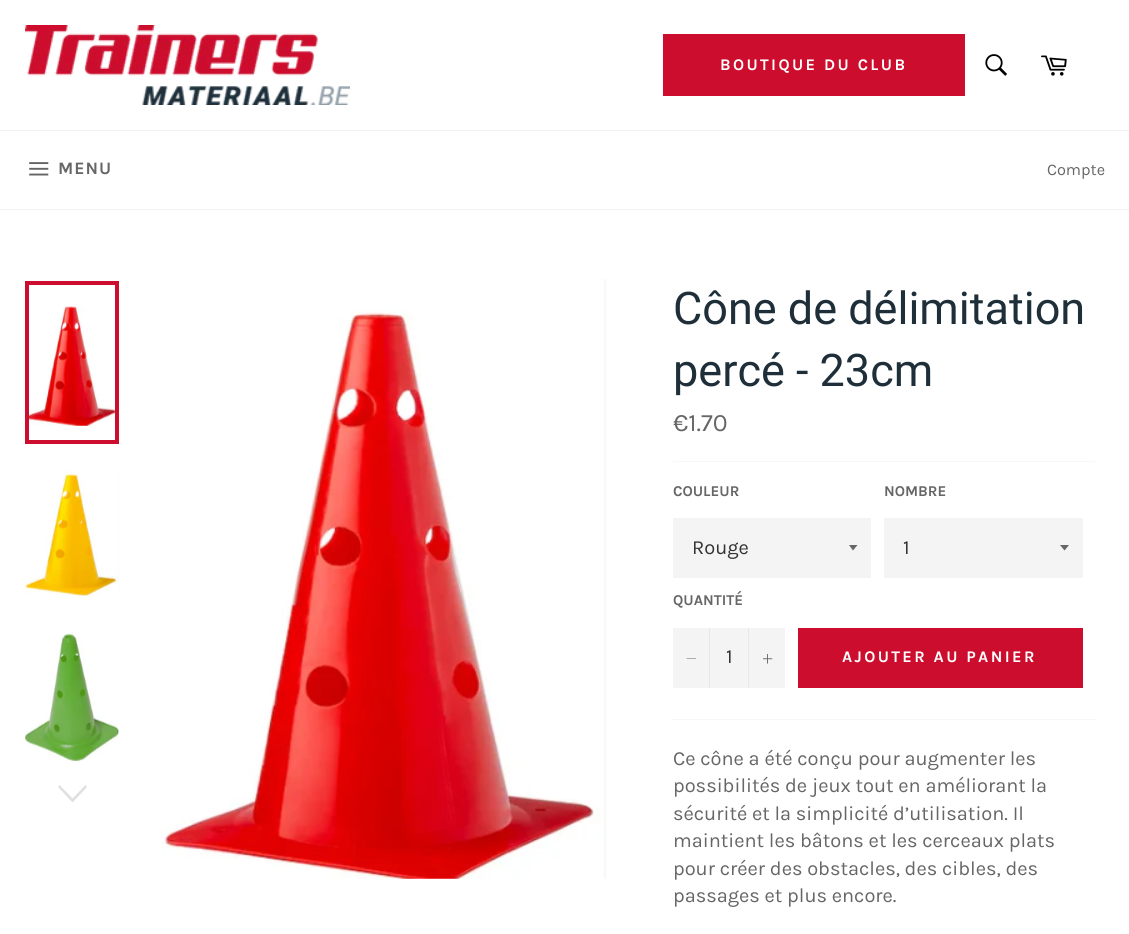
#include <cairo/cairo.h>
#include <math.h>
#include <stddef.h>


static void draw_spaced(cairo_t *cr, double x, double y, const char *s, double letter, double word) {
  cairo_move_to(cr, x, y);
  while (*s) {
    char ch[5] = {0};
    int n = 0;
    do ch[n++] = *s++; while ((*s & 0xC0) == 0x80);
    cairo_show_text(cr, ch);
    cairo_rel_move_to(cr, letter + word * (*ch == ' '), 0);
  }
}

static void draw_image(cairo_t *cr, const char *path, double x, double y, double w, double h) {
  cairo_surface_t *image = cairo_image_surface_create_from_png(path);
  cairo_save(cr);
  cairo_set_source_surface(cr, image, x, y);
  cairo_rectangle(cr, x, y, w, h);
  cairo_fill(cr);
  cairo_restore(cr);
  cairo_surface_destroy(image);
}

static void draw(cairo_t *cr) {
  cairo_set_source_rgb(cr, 1, 1, 1);
  cairo_paint(cr);
  draw_image(cr, "images/1.png", 25, 25, 325, 80);
  cairo_set_source_rgb(cr, 204 / 255.0, 13 / 255.0, 45 / 255.0);
  cairo_rectangle(cr, 663, 34, 302, 62);
  cairo_fill(cr);
  draw_image(cr, "images/2.png", 985, 54, 22, 22);
  draw_image(cr, "images/3.png", 1041, 55, 26, 21);
  cairo_set_source_rgb(cr, 242 / 255.0, 242 / 255.0, 242 / 255.0);
  cairo_rectangle(cr, 0, 130, 1129, 1);
  cairo_fill(cr);
  cairo_rectangle(cr, 0, 209, 1129, 1);
  cairo_fill(cr);
  draw_image(cr, "images/4.png", 29, 162, 20, 14);
  draw_image(cr, "images/5.png", 29, 306, 86, 120);
  cairo_rectangle(cr, 27, 283, 90, 159);
  cairo_set_source_rgb(cr, 204 / 255.0, 13 / 255.0, 45 / 255.0);
  cairo_set_line_width(cr, 4);
  cairo_stroke(cr);
  draw_image(cr, "images/6.png", 25, 470, 94, 127);
  draw_image(cr, "images/7.png", 25, 633, 94, 128);
  cairo_set_source_rgb(cr, 224 / 255.0, 224 / 255.0, 224 / 255.0);
  cairo_new_path(cr);
  cairo_move_to(cr, 85.5, 785);
  cairo_line_to(cr, 87, 787);
  cairo_line_to(cr, 72.5, 802.5);
  cairo_line_to(cr, 58, 787);
  cairo_line_to(cr, 59.5, 785);
  cairo_line_to(cr, 72.5, 798.5);
  cairo_close_path(cr);
  cairo_fill(cr);
  draw_image(cr, "images/8.png", 161, 279, 445, 600);
  cairo_set_source_rgb(cr, 247 / 255.0, 247 / 255.0, 247 / 255.0);
  cairo_rectangle(cr, 673, 461, 422, 1);
  cairo_fill(cr);
  cairo_set_source_rgb(cr, 244 / 255.0, 244 / 255.0, 244 / 255.0);
  cairo_rectangle(cr, 673, 518, 198, 60);
  cairo_fill(cr);
  cairo_set_source_rgb(cr, 102 / 255.0, 102 / 255.0, 102 / 255.0);
  cairo_new_path(cr);
  cairo_move_to(cr, 849, 545);
  cairo_line_to(cr, 853, 550.5);
  cairo_line_to(cr, 857.5, 545);
  cairo_close_path(cr);
  cairo_fill(cr);
  cairo_set_source_rgb(cr, 244 / 255.0, 244 / 255.0, 244 / 255.0);
  cairo_rectangle(cr, 884, 518, 199, 60);
  cairo_fill(cr);
  cairo_set_source_rgb(cr, 102 / 255.0, 102 / 255.0, 102 / 255.0);
  cairo_new_path(cr);
  cairo_move_to(cr, 1060, 545);
  cairo_line_to(cr, 1064.5, 550.5);
  cairo_line_to(cr, 1069, 545);
  cairo_close_path(cr);
  cairo_fill(cr);
  cairo_set_source_rgb(cr, 244 / 255.0, 244 / 255.0, 244 / 255.0);
  cairo_rectangle(cr, 673, 628, 112, 60);
  cairo_fill(cr);
  cairo_set_source_rgb(cr, 231 / 255.0, 231 / 255.0, 231 / 255.0);
  cairo_rectangle(cr, 709, 628, 1, 60);
  cairo_fill(cr);
  cairo_set_source_rgb(cr, 102 / 255.0, 102 / 255.0, 102 / 255.0);
  cairo_set_fill_rule(cr, CAIRO_FILL_RULE_EVEN_ODD);
  cairo_new_path(cr);
  cairo_move_to(cr, 696, 658.5);
  cairo_line_to(cr, 696, 659);
  cairo_line_to(cr, 686.5, 659);
  cairo_line_to(cr, 686.5, 658.5);
  cairo_close_path(cr);
  cairo_fill(cr);
  cairo_set_source_rgb(cr, 231 / 255.0, 231 / 255.0, 231 / 255.0);
  cairo_rectangle(cr, 748, 628, 1, 60);
  cairo_fill(cr);
  draw_image(cr, "images/9.png", 763, 654, 10, 10);
  cairo_set_source_rgb(cr, 204 / 255.0, 13 / 255.0, 45 / 255.0);
  cairo_rectangle(cr, 798, 628, 285, 60);
  cairo_fill(cr);
  cairo_set_source_rgb(cr, 247 / 255.0, 247 / 255.0, 247 / 255.0);
  cairo_rectangle(cr, 673, 719, 422, 1);
  cairo_fill(cr);
  cairo_select_font_face(cr, "Karla", CAIRO_FONT_SLANT_NORMAL, CAIRO_FONT_WEIGHT_BOLD);
  cairo_set_font_size(cr, 16.25);
  cairo_set_source_rgb(cr, 1, 1, 1);
  draw_spaced(cr, 720, 70, "BOUTIQUE DU CLUB", 2.4, 0);
  cairo_set_font_size(cr, 17.5);
  cairo_set_source_rgb(cr, 102 / 255.0, 102 / 255.0, 102 / 255.0);
  draw_spaced(cr, 58, 174, "MENU", 1, 0);
  cairo_select_font_face(cr, "Karla", CAIRO_FONT_SLANT_NORMAL, CAIRO_FONT_WEIGHT_NORMAL);
  cairo_set_font_size(cr, 16.25);
  cairo_move_to(cr, 1047, 175);
  cairo_show_text(cr, "Compte");
  cairo_select_font_face(cr, "Roboto", CAIRO_FONT_SLANT_NORMAL, CAIRO_FONT_WEIGHT_NORMAL);
  cairo_set_font_size(cr, 45);
  cairo_set_source_rgb(cr, 30 / 255.0, 47 / 255.0, 58 / 255.0);
  cairo_move_to(cr, 673, 324);
  cairo_show_text(cr, "Cône de délimitation");
  cairo_move_to(cr, 673, 386);
  cairo_show_text(cr, "percé - 23cm");
  cairo_select_font_face(cr, "Karla", CAIRO_FONT_SLANT_NORMAL, CAIRO_FONT_WEIGHT_NORMAL);
  cairo_set_font_size(cr, 25);
  cairo_set_source_rgb(cr, 102 / 255.0, 102 / 255.0, 102 / 255.0);
  cairo_move_to(cr, 673, 431);
  cairo_show_text(cr, "€1.70");
  cairo_select_font_face(cr, "Karla", CAIRO_FONT_SLANT_NORMAL, CAIRO_FONT_WEIGHT_BOLD);
  cairo_set_font_size(cr, 15);
  cairo_move_to(cr, 673, 496);
  cairo_show_text(cr, "COULEUR");
  cairo_select_font_face(cr, "Karla", CAIRO_FONT_SLANT_NORMAL, CAIRO_FONT_WEIGHT_NORMAL);
  cairo_set_font_size(cr, 20);
  cairo_set_source_rgb(cr, 51 / 255.0, 51 / 255.0, 51 / 255.0);
  cairo_move_to(cr, 692, 554);
  cairo_show_text(cr, "Rouge");
  cairo_select_font_face(cr, "Karla", CAIRO_FONT_SLANT_NORMAL, CAIRO_FONT_WEIGHT_BOLD);
  cairo_set_font_size(cr, 15);
  cairo_set_source_rgb(cr, 102 / 255.0, 102 / 255.0, 102 / 255.0);
  cairo_move_to(cr, 884, 496);
  cairo_show_text(cr, "NOMBRE");
  cairo_select_font_face(cr, "Karla", CAIRO_FONT_SLANT_NORMAL, CAIRO_FONT_WEIGHT_NORMAL);
  cairo_set_font_size(cr, 20);
  cairo_set_source_rgb(cr, 51 / 255.0, 51 / 255.0, 51 / 255.0);
  cairo_move_to(cr, 903, 554);
  cairo_show_text(cr, "1");
  cairo_select_font_face(cr, "Karla", CAIRO_FONT_SLANT_NORMAL, CAIRO_FONT_WEIGHT_BOLD);
  cairo_set_font_size(cr, 15);
  cairo_set_source_rgb(cr, 102 / 255.0, 102 / 255.0, 102 / 255.0);
  cairo_move_to(cr, 673, 605);
  cairo_show_text(cr, "QUANTITÉ");
  cairo_select_font_face(cr, "Karla", CAIRO_FONT_SLANT_NORMAL, CAIRO_FONT_WEIGHT_NORMAL);
  cairo_set_font_size(cr, 20);
  cairo_set_source_rgb(cr, 51 / 255.0, 51 / 255.0, 51 / 255.0);
  cairo_move_to(cr, 726, 663);
  cairo_show_text(cr, "1");
  cairo_select_font_face(cr, "Karla", CAIRO_FONT_SLANT_NORMAL, CAIRO_FONT_WEIGHT_BOLD);
  cairo_set_font_size(cr, 16.25);
  cairo_set_source_rgb(cr, 1, 1, 1);
  draw_spaced(cr, 842, 662, "AJOUTER AU PANIER", 2.4, 0);
  cairo_select_font_face(cr, "Karla", CAIRO_FONT_SLANT_NORMAL, CAIRO_FONT_WEIGHT_NORMAL);
  cairo_set_font_size(cr, 20);
  cairo_set_source_rgb(cr, 102 / 255.0, 102 / 255.0, 102 / 255.0);
  cairo_move_to(cr, 673, 765);
  cairo_show_text(cr, "Ce cône a été conçu pour augmenter les");
  cairo_move_to(cr, 673, 792);
  cairo_show_text(cr, "possibilités de jeux tout en améliorant la");
  cairo_move_to(cr, 673, 820);
  cairo_show_text(cr, "sécurité et la simplicité d’utilisation. Il");
  cairo_move_to(cr, 673, 847);
  cairo_show_text(cr, "maintient les bâtons et les cerceaux plats");
  cairo_move_to(cr, 673, 875);
  cairo_show_text(cr, "pour créer des obstacles, des cibles, des");
  cairo_move_to(cr, 673, 902);
  cairo_show_text(cr, "passages et plus encore.");
}

int main(void) {
  cairo_surface_t *surface = cairo_image_surface_create(CAIRO_FORMAT_RGB24, 1129, 934);
  cairo_t *cr = cairo_create(surface);
  cairo_font_options_t *options = cairo_font_options_create();
  cairo_font_options_set_hint_metrics(options, CAIRO_HINT_METRICS_OFF);
  cairo_font_options_set_hint_style(options, CAIRO_HINT_STYLE_NONE);
  cairo_set_font_options(cr, options);
  cairo_set_miter_limit(cr, 4);
  draw(cr);
  cairo_surface_write_to_png(surface, "out.png");
  cairo_font_options_destroy(options);
  cairo_destroy(cr);
  cairo_surface_destroy(surface);
  return 0;
}
